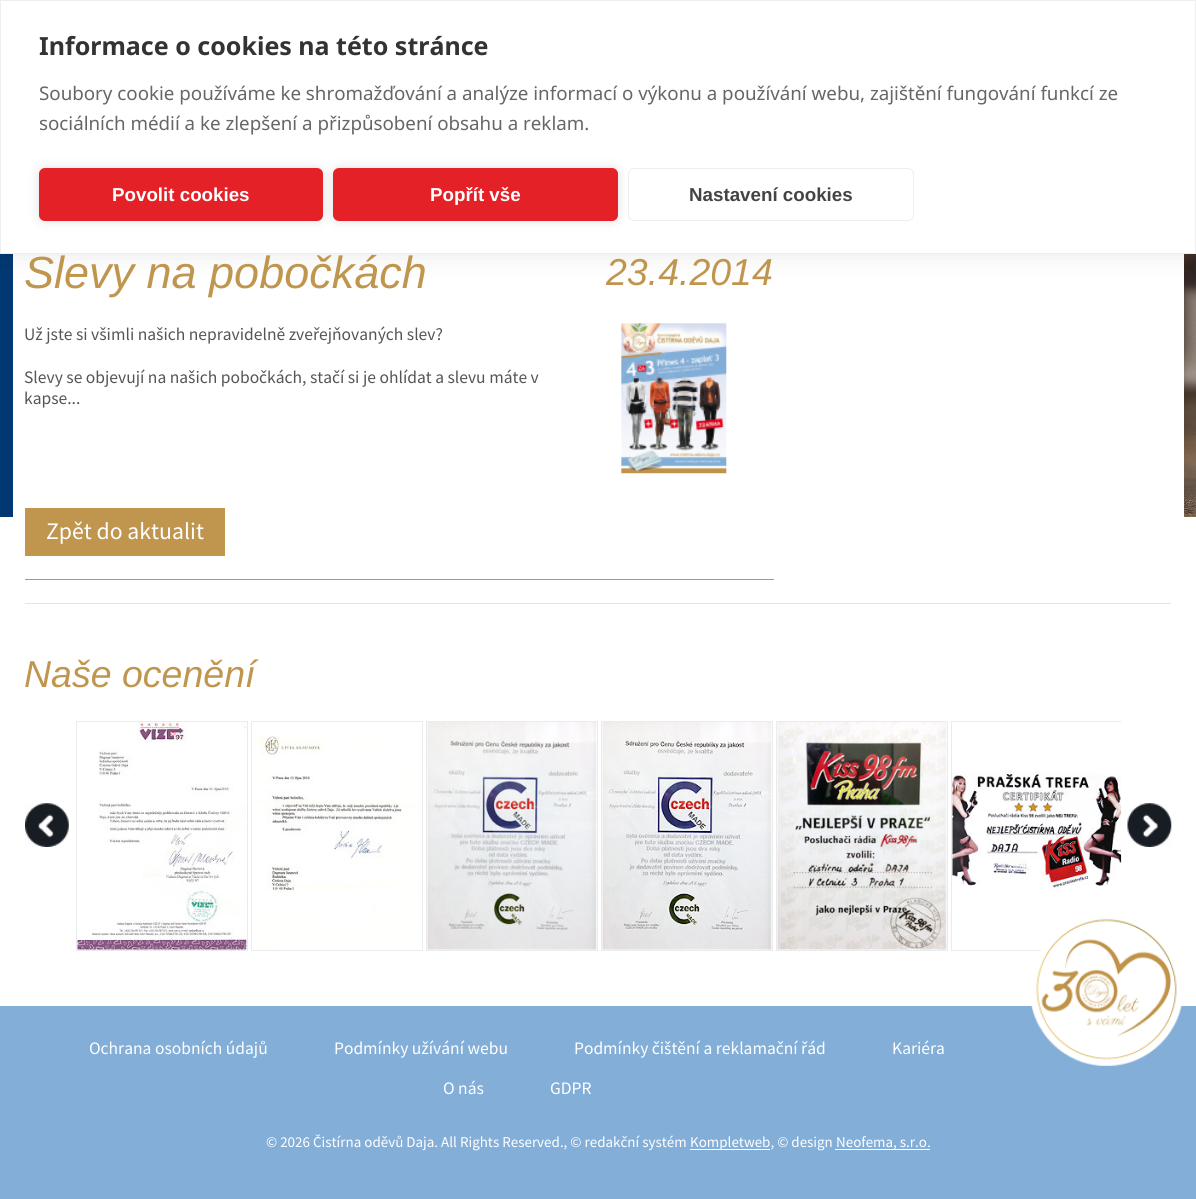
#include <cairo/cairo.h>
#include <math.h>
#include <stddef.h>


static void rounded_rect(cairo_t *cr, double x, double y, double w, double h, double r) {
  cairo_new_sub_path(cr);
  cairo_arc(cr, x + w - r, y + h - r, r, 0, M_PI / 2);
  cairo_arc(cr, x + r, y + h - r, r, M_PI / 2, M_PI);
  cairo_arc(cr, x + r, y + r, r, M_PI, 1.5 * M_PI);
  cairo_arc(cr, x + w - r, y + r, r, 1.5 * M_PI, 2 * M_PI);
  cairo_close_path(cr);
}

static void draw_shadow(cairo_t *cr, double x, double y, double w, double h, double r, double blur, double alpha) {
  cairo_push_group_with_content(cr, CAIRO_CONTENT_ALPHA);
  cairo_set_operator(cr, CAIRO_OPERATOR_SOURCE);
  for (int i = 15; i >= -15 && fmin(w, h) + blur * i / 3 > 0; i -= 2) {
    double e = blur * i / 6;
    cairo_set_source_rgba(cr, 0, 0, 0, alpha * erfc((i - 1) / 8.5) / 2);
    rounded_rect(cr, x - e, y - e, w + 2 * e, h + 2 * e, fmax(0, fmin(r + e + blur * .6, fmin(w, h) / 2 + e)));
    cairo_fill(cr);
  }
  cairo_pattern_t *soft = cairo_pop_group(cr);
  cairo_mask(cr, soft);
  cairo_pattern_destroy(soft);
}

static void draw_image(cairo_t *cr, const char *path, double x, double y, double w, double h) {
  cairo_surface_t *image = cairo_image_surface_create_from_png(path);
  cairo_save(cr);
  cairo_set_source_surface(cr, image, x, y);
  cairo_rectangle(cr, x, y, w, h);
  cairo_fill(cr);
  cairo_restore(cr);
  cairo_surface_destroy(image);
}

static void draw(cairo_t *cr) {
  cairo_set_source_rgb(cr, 1, 1, 1);
  cairo_paint(cr);
  draw_image(cr, "images/1.png", 0, 254, 1196, 263);
  cairo_set_source_rgb(cr, 1, 1, 1);
  cairo_rectangle(cr, 13, 254, 1171, 263);
  cairo_fill(cr);
  cairo_set_source_rgb(cr, 0, 0, 0);
  draw_shadow(cr, 0, 0, 1196, 254, 0, 12.5, 0.1);
  cairo_set_source_rgb(cr, 1, 1, 1);
  cairo_rectangle(cr, 0.5, 0.5, 1195, 253);
  cairo_fill_preserve(cr);
  cairo_set_source_rgb(cr, 238 / 255.0, 238 / 255.0, 238 / 255.0);
  cairo_set_line_width(cr, 1);
  cairo_stroke(cr);
  cairo_set_source_rgb(cr, 0, 0, 0);
  draw_shadow(cr, 39, 168, 284, 53, 6, 6, 0.12);
  cairo_set_source_rgb(cr, 228 / 255.0, 33 / 255.0, 39 / 255.0);
  rounded_rect(cr, 39, 168, 284, 53, 6);
  cairo_fill(cr);
  cairo_set_source_rgb(cr, 0, 0, 0);
  draw_shadow(cr, 333, 168, 285, 53, 6, 6, 0.12);
  cairo_set_source_rgb(cr, 228 / 255.0, 33 / 255.0, 39 / 255.0);
  rounded_rect(cr, 333, 168, 285, 53, 6);
  cairo_fill(cr);
  rounded_rect(cr, 628.5, 168.5, 285, 52, 5.5);
  cairo_set_source_rgb(cr, 238 / 255.0, 238 / 255.0, 238 / 255.0);
  cairo_stroke(cr);
  cairo_set_source_rgb(cr, 192 / 255.0, 150 / 255.0, 78 / 255.0);
  cairo_rectangle(cr, 25, 579, 749, 1);
  cairo_fill(cr);
  draw_image(cr, "images/2.png", 621, 323, 106, 151);
  cairo_rectangle(cr, 25, 508, 200, 48);
  cairo_fill(cr);
  cairo_set_source_rgb(cr, 239 / 255.0, 228 / 255.0, 210 / 255.0);
  cairo_rectangle(cr, 25, 603, 1146, 1);
  cairo_fill(cr);
  draw_image(cr, "images/3.png", 25, 803, 44, 44);
  cairo_rectangle(cr, 76.5, 721.5, 171, 229);
  cairo_set_source_rgb(cr, 234 / 255.0, 235 / 255.0, 237 / 255.0);
  cairo_stroke(cr);
  draw_image(cr, "images/4.png", 77, 722, 170, 228);
  cairo_rectangle(cr, 251.5, 721.5, 171, 229);
  cairo_stroke(cr);
  draw_image(cr, "images/5.png", 255, 735, 166, 214);
  cairo_rectangle(cr, 426.5, 721.5, 171, 229);
  cairo_stroke(cr);
  draw_image(cr, "images/6.png", 427, 722, 170, 228);
  cairo_rectangle(cr, 601.5, 721.5, 171, 229);
  cairo_stroke(cr);
  draw_image(cr, "images/7.png", 602, 722, 170, 228);
  cairo_rectangle(cr, 776.5, 721.5, 171, 229);
  cairo_stroke(cr);
  draw_image(cr, "images/8.png", 777, 722, 170, 228);
  cairo_save(cr);
  cairo_rectangle(cr, 75, 721, 1046, 235);
  cairo_clip(cr);
  cairo_rectangle(cr, 951.5, 721.5, 171, 229);
  cairo_stroke(cr);
  cairo_restore(cr);
  draw_image(cr, "images/9.png", 952, 771, 170, 121);
  draw_image(cr, "images/10.png", 1127, 803, 45, 44);
  cairo_set_source_rgb(cr, 131 / 255.0, 174 / 255.0, 216 / 255.0);
  cairo_rectangle(cr, 0, 1006, 1196, 193);
  cairo_fill(cr);
  draw_image(cr, "images/11.png", 1031, 919, 151, 147);
  cairo_set_source_rgb(cr, 1, 1, 1);
  cairo_rectangle(cr, 690, 1149, 80, 1);
  cairo_fill(cr);
  cairo_rectangle(cr, 835, 1149, 95, 1);
  cairo_fill(cr);
  cairo_select_font_face(cr, "Noto Sans", CAIRO_FONT_SLANT_NORMAL, CAIRO_FONT_WEIGHT_BOLD);
  cairo_set_font_size(cr, 25);
  cairo_set_source_rgb(cr, 51 / 255.0, 51 / 255.0, 51 / 255.0);
  cairo_move_to(cr, 39, 55);
  cairo_show_text(cr, "Informace o cookies na této stránce");
  cairo_select_font_face(cr, "Noto Sans", CAIRO_FONT_SLANT_NORMAL, CAIRO_FONT_WEIGHT_NORMAL);
  cairo_set_font_size(cr, 18.75);
  cairo_set_source_rgb(cr, 102 / 255.0, 102 / 255.0, 102 / 255.0);
  cairo_move_to(cr, 39, 100);
  cairo_show_text(cr, "Soubory cookie používáme ke shromažďování a analýze informací o výkonu a používání webu, zajištění fungování funkcí ze");
  cairo_move_to(cr, 39, 130);
  cairo_show_text(cr, "sociálních médií a ke zlepšení a přizpůsobení obsahu a reklam.");
  cairo_select_font_face(cr, "Liberation Sans", CAIRO_FONT_SLANT_NORMAL, CAIRO_FONT_WEIGHT_BOLD);
  cairo_set_source_rgb(cr, 1, 1, 1);
  cairo_move_to(cr, 112, 201);
  cairo_show_text(cr, "Povolit cookies");
  cairo_move_to(cr, 430, 201);
  cairo_show_text(cr, "Popřít vše");
  cairo_set_source_rgb(cr, 68 / 255.0, 68 / 255.0, 68 / 255.0);
  cairo_move_to(cr, 689, 201);
  cairo_show_text(cr, "Nastavení cookies");
  cairo_select_font_face(cr, "Liberation Sans", CAIRO_FONT_SLANT_ITALIC, CAIRO_FONT_WEIGHT_NORMAL);
  cairo_set_font_size(cr, 45);
  cairo_set_source_rgb(cr, 192 / 255.0, 150 / 255.0, 78 / 255.0);
  cairo_move_to(cr, 24, 288);
  cairo_show_text(cr, "Slevy na pobočkách");
  cairo_set_font_size(cr, 37.5);
  cairo_move_to(cr, 606, 285);
  cairo_show_text(cr, "23.4.2014");
  cairo_select_font_face(cr, "Source Sans Pro", CAIRO_FONT_SLANT_NORMAL, CAIRO_FONT_WEIGHT_NORMAL);
  cairo_set_font_size(cr, 17.5);
  cairo_set_source_rgb(cr, 85 / 255.0, 85 / 255.0, 85 / 255.0);
  cairo_move_to(cr, 24, 340);
  cairo_show_text(cr, "Už jste si všimli našich nepravidelně zveřejňovaných slev?");
  cairo_move_to(cr, 24, 383);
  cairo_show_text(cr, "Slevy se objevují na našich pobočkách, stačí si je ohlídat a slevu máte v");
  cairo_move_to(cr, 24, 404);
  cairo_show_text(cr, "kapse...");
  cairo_set_font_size(cr, 23.75);
  cairo_set_source_rgb(cr, 1, 1, 1);
  cairo_move_to(cr, 46, 539);
  cairo_show_text(cr, "Zpět do aktualit");
  cairo_select_font_face(cr, "Liberation Sans", CAIRO_FONT_SLANT_ITALIC, CAIRO_FONT_WEIGHT_NORMAL);
  cairo_set_font_size(cr, 37.5);
  cairo_set_source_rgb(cr, 192 / 255.0, 150 / 255.0, 78 / 255.0);
  cairo_move_to(cr, 24, 687);
  cairo_show_text(cr, "Naše ocenění");
  cairo_select_font_face(cr, "Source Sans Pro", CAIRO_FONT_SLANT_NORMAL, CAIRO_FONT_WEIGHT_NORMAL);
  cairo_set_font_size(cr, 17.5);
  cairo_set_source_rgb(cr, 1, 1, 1);
  cairo_move_to(cr, 89, 1054);
  cairo_show_text(cr, "Ochrana osobních údajů");
  cairo_move_to(cr, 334, 1054);
  cairo_show_text(cr, "Podmínky užívání webu");
  cairo_move_to(cr, 574, 1054);
  cairo_show_text(cr, "Podmínky čištění a reklamační řád");
  cairo_move_to(cr, 892, 1054);
  cairo_show_text(cr, "Kariéra");
  cairo_move_to(cr, 443, 1094);
  cairo_show_text(cr, "O nás");
  cairo_move_to(cr, 550, 1094);
  cairo_show_text(cr, "GDPR");
  cairo_set_font_size(cr, 15);
  cairo_move_to(cr, 266, 1147);
  cairo_show_text(cr, "© 2026 Čistírna oděvů Daja. All Rights Reserved., © redakční systém");
  cairo_move_to(cr, 690, 1147);
  cairo_show_text(cr, "Kompletweb, © design");
  cairo_move_to(cr, 836, 1147);
  cairo_show_text(cr, "Neofema, s.r.o.");
}

int main(void) {
  cairo_surface_t *surface = cairo_image_surface_create(CAIRO_FORMAT_RGB24, 1196, 1199);
  cairo_t *cr = cairo_create(surface);
  cairo_font_options_t *options = cairo_font_options_create();
  cairo_font_options_set_hint_metrics(options, CAIRO_HINT_METRICS_OFF);
  cairo_font_options_set_hint_style(options, CAIRO_HINT_STYLE_NONE);
  cairo_set_font_options(cr, options);
  cairo_set_miter_limit(cr, 4);
  draw(cr);
  cairo_surface_write_to_png(surface, "out.png");
  cairo_font_options_destroy(options);
  cairo_destroy(cr);
  cairo_surface_destroy(surface);
  return 0;
}
